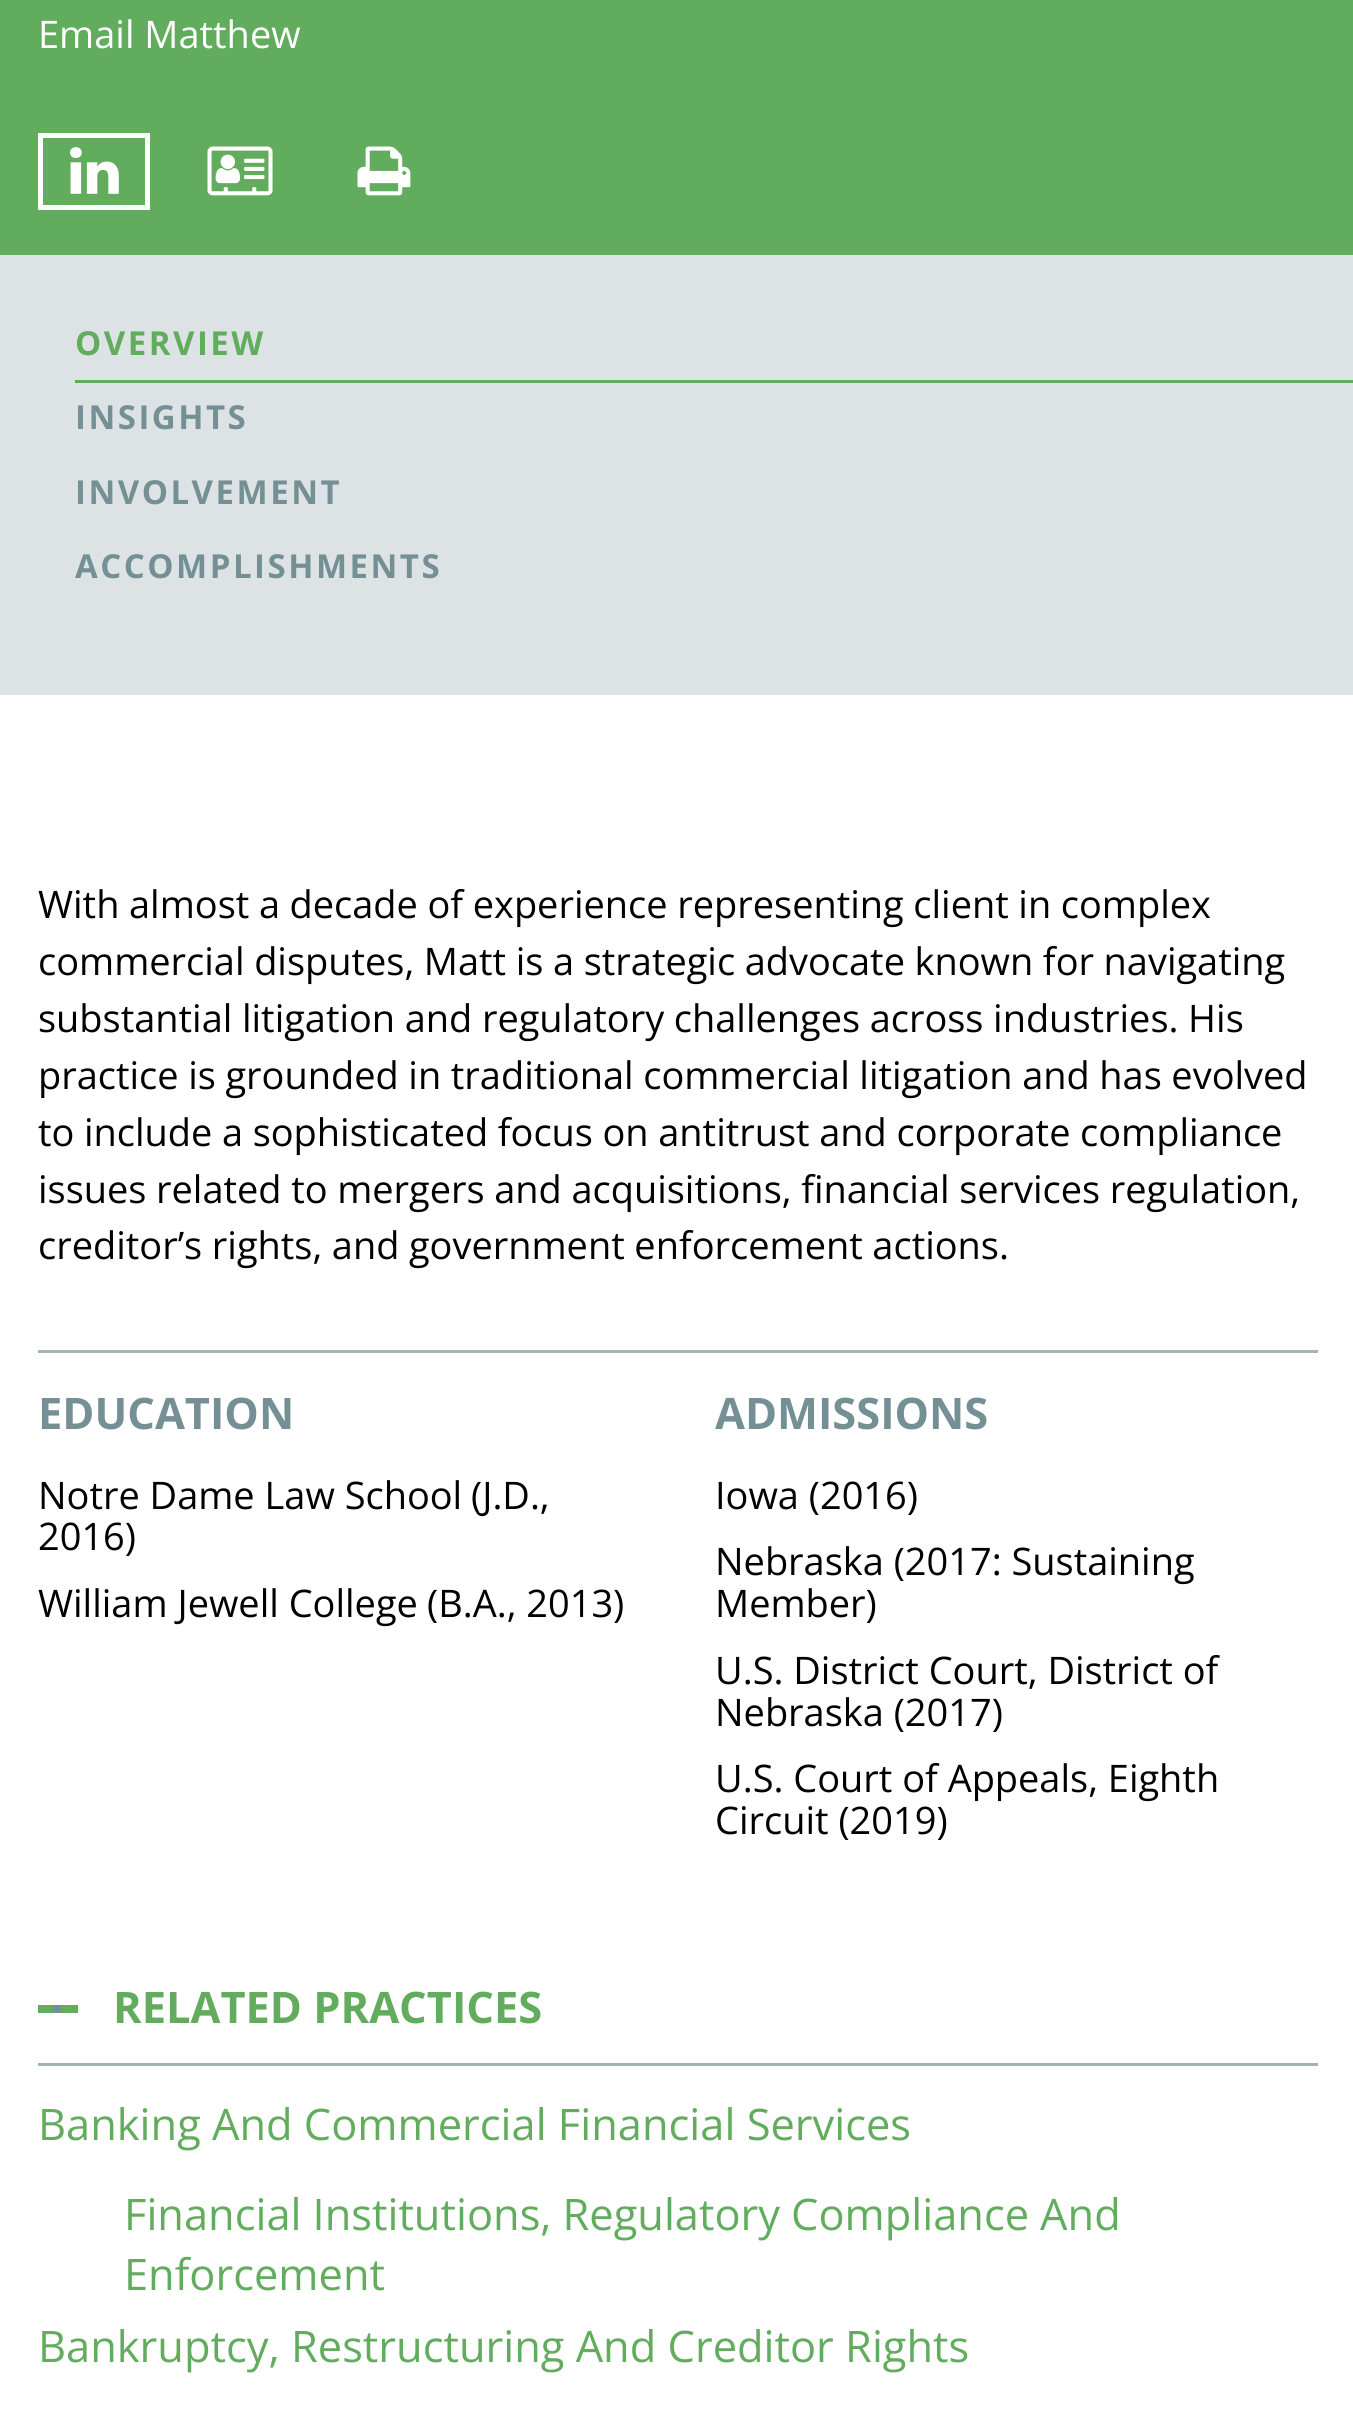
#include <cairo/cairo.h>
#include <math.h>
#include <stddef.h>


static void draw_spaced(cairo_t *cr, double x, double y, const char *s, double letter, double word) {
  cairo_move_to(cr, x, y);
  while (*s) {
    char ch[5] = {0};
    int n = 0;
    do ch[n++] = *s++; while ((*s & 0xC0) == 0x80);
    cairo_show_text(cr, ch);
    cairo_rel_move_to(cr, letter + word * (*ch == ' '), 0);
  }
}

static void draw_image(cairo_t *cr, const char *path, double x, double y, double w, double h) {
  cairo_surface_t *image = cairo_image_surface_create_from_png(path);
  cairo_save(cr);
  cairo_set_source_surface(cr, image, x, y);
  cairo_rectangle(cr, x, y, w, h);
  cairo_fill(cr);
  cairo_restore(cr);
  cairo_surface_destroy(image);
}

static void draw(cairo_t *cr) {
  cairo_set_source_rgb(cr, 1, 1, 1);
  cairo_paint(cr);
  cairo_set_source_rgb(cr, 98 / 255.0, 172 / 255.0, 93 / 255.0);
  cairo_rectangle(cr, 0, 0, 1353, 255);
  cairo_fill(cr);
  cairo_rectangle(cr, 40.5, 135.5, 107, 72);
  cairo_set_source_rgb(cr, 1, 1, 1);
  cairo_set_line_width(cr, 5);
  cairo_stroke(cr);
  draw_image(cr, "images/1.png", 70, 147, 49, 47);
  draw_image(cr, "images/2.png", 207, 146, 66, 50);
  draw_image(cr, "images/3.png", 357, 146, 54, 50);
  cairo_set_source_rgb(cr, 221 / 255.0, 227 / 255.0, 229 / 255.0);
  cairo_rectangle(cr, 0, 255, 1353, 440);
  cairo_fill(cr);
  cairo_set_source_rgb(cr, 98 / 255.0, 172 / 255.0, 93 / 255.0);
  cairo_rectangle(cr, 75, 380, 1278, 3);
  cairo_fill(cr);
  cairo_set_source_rgb(cr, 164 / 255.0, 182 / 255.0, 186 / 255.0);
  cairo_rectangle(cr, 38, 1350, 1280, 3);
  cairo_fill(cr);
  cairo_set_source_rgb(cr, 160 / 255.0, 179 / 255.0, 183 / 255.0);
  cairo_rectangle(cr, 38, 2063, 1280, 3);
  cairo_fill(cr);
  cairo_set_source_rgb(cr, 98 / 255.0, 172 / 255.0, 93 / 255.0);
  cairo_rectangle(cr, 38, 2005, 40, 8);
  cairo_fill(cr);
  cairo_set_source_rgb(cr, 116 / 255.0, 144 / 255.0, 149 / 255.0);
  cairo_rectangle(cr, 53, 2005, 8, 8);
  cairo_fill(cr);
  cairo_select_font_face(cr, "Open Sans", CAIRO_FONT_SLANT_NORMAL, CAIRO_FONT_WEIGHT_NORMAL);
  cairo_set_font_size(cr, 37.95);
  cairo_set_source_rgb(cr, 1, 1, 1);
  cairo_move_to(cr, 38, 48);
  cairo_show_text(cr, "Email Matthew");
  cairo_select_font_face(cr, "Open Sans", CAIRO_FONT_SLANT_NORMAL, CAIRO_FONT_WEIGHT_BOLD);
  cairo_set_font_size(cr, 33);
  cairo_set_source_rgb(cr, 98 / 255.0, 172 / 255.0, 93 / 255.0);
  draw_spaced(cr, 75, 355, "OVERVIEW", 2.5, 0);
  cairo_set_source_rgb(cr, 116 / 255.0, 144 / 255.0, 149 / 255.0);
  draw_spaced(cr, 75, 429, "INSIGHTS", 2.5, 0);
  draw_spaced(cr, 75, 504, "INVOLVEMENT", 2.5, 0);
  draw_spaced(cr, 75, 578, "ACCOMPLISHMENTS", 2.5, 0);
  cairo_select_font_face(cr, "Open Sans", CAIRO_FONT_SLANT_NORMAL, CAIRO_FONT_WEIGHT_NORMAL);
  cairo_set_font_size(cr, 37.95);
  cairo_set_source_rgb(cr, 0, 0, 0);
  draw_spaced(cr, 38, 918, "With almost a decade of experience representing client in complex", 0, -0.25);
  draw_spaced(cr, 38, 975, "commercial disputes, Matt is a strategic advocate known for navigating", 0, -0.25);
  draw_spaced(cr, 38, 1032, "substantial litigation and regulatory challenges across industries. His", 0, -0.25);
  draw_spaced(cr, 38, 1089, "practice is grounded in traditional commercial litigation and has evolved", 0, -0.25);
  draw_spaced(cr, 38, 1146, "to include a sophisticated focus on antitrust and corporate compliance", 0, -0.25);
  draw_spaced(cr, 38, 1203, "issues related to mergers and acquisitions, financial services regulation,", 0, -0.25);
  draw_spaced(cr, 38, 1259, "creditor’s rights, and government enforcement actions.", 0, -0.25);
  cairo_select_font_face(cr, "Open Sans", CAIRO_FONT_SLANT_NORMAL, CAIRO_FONT_WEIGHT_BOLD);
  cairo_set_font_size(cr, 43.4);
  cairo_set_source_rgb(cr, 116 / 255.0, 144 / 255.0, 149 / 255.0);
  cairo_move_to(cr, 38, 1429);
  cairo_show_text(cr, "EDUCATION");
  cairo_select_font_face(cr, "Open Sans", CAIRO_FONT_SLANT_NORMAL, CAIRO_FONT_WEIGHT_NORMAL);
  cairo_set_font_size(cr, 37.95);
  cairo_set_source_rgb(cr, 0, 0, 0);
  cairo_move_to(cr, 38, 1509);
  cairo_show_text(cr, "Notre Dame Law School");
  cairo_move_to(cr, 471, 1509);
  cairo_show_text(cr, "(J.D.,");
  cairo_move_to(cr, 38, 1550);
  cairo_show_text(cr, "2016)");
  cairo_move_to(cr, 38, 1617);
  cairo_show_text(cr, "William Jewell College");
  cairo_move_to(cr, 427, 1617);
  cairo_show_text(cr, "(B.A., 2013)");
  cairo_select_font_face(cr, "Open Sans", CAIRO_FONT_SLANT_NORMAL, CAIRO_FONT_WEIGHT_BOLD);
  cairo_set_font_size(cr, 43.4);
  cairo_set_source_rgb(cr, 116 / 255.0, 144 / 255.0, 149 / 255.0);
  cairo_move_to(cr, 715, 1429);
  cairo_show_text(cr, "ADMISSIONS");
  cairo_select_font_face(cr, "Open Sans", CAIRO_FONT_SLANT_NORMAL, CAIRO_FONT_WEIGHT_NORMAL);
  cairo_set_font_size(cr, 37.95);
  cairo_set_source_rgb(cr, 0, 0, 0);
  cairo_move_to(cr, 715, 1509);
  cairo_show_text(cr, "Iowa (2016)");
  cairo_move_to(cr, 715, 1575);
  cairo_show_text(cr, "Nebraska (2017: Sustaining");
  cairo_move_to(cr, 715, 1617);
  cairo_show_text(cr, "Member)");
  cairo_move_to(cr, 715, 1684);
  cairo_show_text(cr, "U.S. District Court, District of");
  cairo_move_to(cr, 715, 1726);
  cairo_show_text(cr, "Nebraska (2017)");
  cairo_move_to(cr, 715, 1792);
  cairo_show_text(cr, "U.S. Court of Appeals, Eighth");
  cairo_move_to(cr, 715, 1834);
  cairo_show_text(cr, "Circuit (2019)");
  cairo_select_font_face(cr, "Open Sans", CAIRO_FONT_SLANT_NORMAL, CAIRO_FONT_WEIGHT_BOLD);
  cairo_set_font_size(cr, 43.4);
  cairo_set_source_rgb(cr, 98 / 255.0, 172 / 255.0, 93 / 255.0);
  cairo_move_to(cr, 113, 2023);
  cairo_show_text(cr, "RELATED PRACTICES");
  cairo_select_font_face(cr, "Open Sans", CAIRO_FONT_SLANT_NORMAL, CAIRO_FONT_WEIGHT_NORMAL);
  cairo_move_to(cr, 38, 2140);
  cairo_show_text(cr, "Banking And Commercial Financial Services");
  draw_spaced(cr, 124, 2230, "Financial Institutions, Regulatory Compliance And", 0, -0.25);
  cairo_move_to(cr, 124, 2290);
  cairo_show_text(cr, "Enforcement");
  cairo_move_to(cr, 38, 2362);
  cairo_show_text(cr, "Bankruptcy, Restructuring And Creditor Rights");
}

int main(void) {
  cairo_surface_t *surface = cairo_image_surface_create(CAIRO_FORMAT_RGB24, 1353, 2426);
  cairo_t *cr = cairo_create(surface);
  cairo_font_options_t *options = cairo_font_options_create();
  cairo_font_options_set_hint_metrics(options, CAIRO_HINT_METRICS_OFF);
  cairo_font_options_set_hint_style(options, CAIRO_HINT_STYLE_NONE);
  cairo_set_font_options(cr, options);
  cairo_set_miter_limit(cr, 4);
  draw(cr);
  cairo_surface_write_to_png(surface, "out.png");
  cairo_font_options_destroy(options);
  cairo_destroy(cr);
  cairo_surface_destroy(surface);
  return 0;
}
